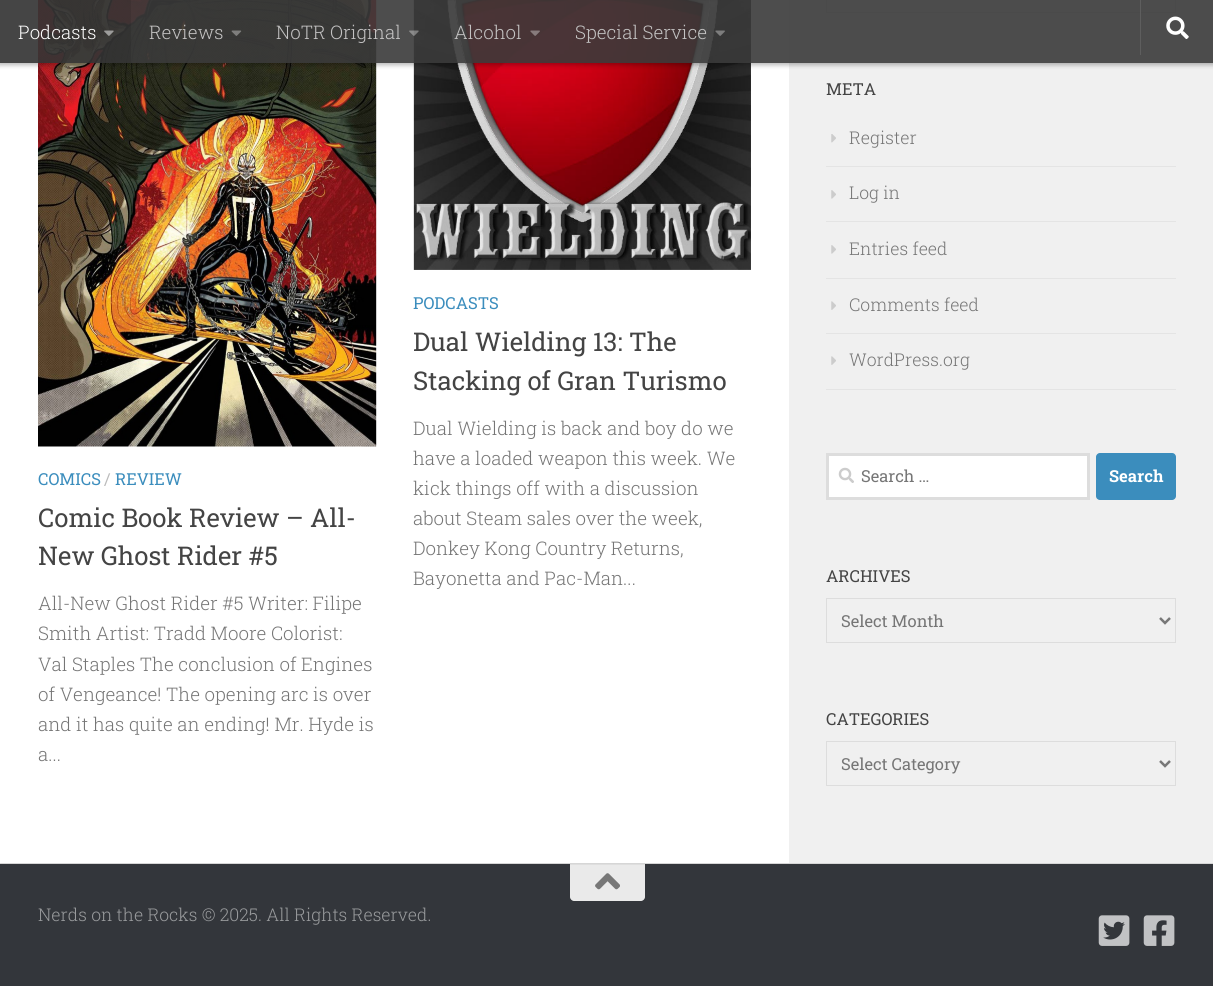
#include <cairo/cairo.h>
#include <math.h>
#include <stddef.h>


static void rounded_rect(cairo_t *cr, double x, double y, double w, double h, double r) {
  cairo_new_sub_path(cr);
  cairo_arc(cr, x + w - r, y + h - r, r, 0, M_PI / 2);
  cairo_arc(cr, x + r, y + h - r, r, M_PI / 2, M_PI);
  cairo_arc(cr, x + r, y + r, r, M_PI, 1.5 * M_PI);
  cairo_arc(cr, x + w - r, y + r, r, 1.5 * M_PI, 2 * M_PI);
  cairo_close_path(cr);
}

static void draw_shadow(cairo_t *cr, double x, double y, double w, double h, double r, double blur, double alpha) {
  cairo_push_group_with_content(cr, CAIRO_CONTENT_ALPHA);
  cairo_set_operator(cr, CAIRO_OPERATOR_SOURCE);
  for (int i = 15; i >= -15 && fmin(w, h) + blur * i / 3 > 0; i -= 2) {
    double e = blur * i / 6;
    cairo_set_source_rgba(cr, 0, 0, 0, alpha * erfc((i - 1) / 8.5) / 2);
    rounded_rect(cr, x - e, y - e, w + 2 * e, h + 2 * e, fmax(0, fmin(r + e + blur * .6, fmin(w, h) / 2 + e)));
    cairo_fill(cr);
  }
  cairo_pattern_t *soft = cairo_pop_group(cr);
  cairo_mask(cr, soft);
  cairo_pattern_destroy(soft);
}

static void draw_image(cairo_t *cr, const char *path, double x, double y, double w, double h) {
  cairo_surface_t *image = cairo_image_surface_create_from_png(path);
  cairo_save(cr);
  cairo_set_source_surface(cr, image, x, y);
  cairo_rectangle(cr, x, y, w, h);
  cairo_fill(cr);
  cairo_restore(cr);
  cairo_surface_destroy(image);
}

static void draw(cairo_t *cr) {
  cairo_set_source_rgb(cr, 234 / 255.0, 234 / 255.0, 234 / 255.0);
  cairo_paint(cr);
  cairo_set_source_rgb(cr, 0, 0, 0);
  draw_shadow(cr, 0, -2, 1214, 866, 0, 0.5, 0.1);
  cairo_set_source_rgb(cr, 1, 1, 1);
  cairo_rectangle(cr, 0, 0, 789, 863);
  cairo_fill(cr);
  cairo_set_source_rgb(cr, 240 / 255.0, 240 / 255.0, 240 / 255.0);
  cairo_rectangle(cr, 789, 0, 424, 863);
  cairo_fill(cr);
  draw_image(cr, "images/7.png", 38, 0, 339, 447);
  draw_image(cr, "images/8.png", 413, 0, 338, 270);
  cairo_rectangle(cr, 826.5, -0.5, 349, 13);
  cairo_set_source_rgb(cr, 221 / 255.0, 221 / 255.0, 221 / 255.0);
  cairo_set_line_width(cr, 1);
  cairo_stroke(cr);
  cairo_save(cr);
  cairo_set_fill_rule(cr, CAIRO_FILL_RULE_EVEN_ODD);
  cairo_new_path(cr);
  cairo_move_to(cr, 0, 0);
  cairo_line_to(cr, 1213, 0);
  cairo_line_to(cr, 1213, 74);
  cairo_line_to(cr, 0, 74);
  cairo_close_path(cr);
  cairo_move_to(cr, 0, 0);
  cairo_line_to(cr, 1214, 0);
  cairo_line_to(cr, 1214, 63);
  cairo_line_to(cr, 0, 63);
  cairo_close_path(cr);
  cairo_clip(cr);
  cairo_set_source_rgb(cr, 0, 0, 0);
  draw_shadow(cr, -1, 0, 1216, 65, 0, 2.5, 0.3);
  cairo_restore(cr);
  cairo_set_source_rgba(cr, 58 / 255.0, 58 / 255.0, 58 / 255.0, 0.9);
  cairo_rectangle(cr, 0, 0, 1213, 63);
  cairo_fill(cr);
  cairo_set_source_rgba(cr, 0, 0, 0, 0.1);
  cairo_rectangle(cr, 0, 0, 131, 63);
  cairo_fill(cr);
  draw_image(cr, "images/1.png", 104, 30, 10, 6);
  draw_image(cr, "images/2.png", 231, 30, 11, 6);
  draw_image(cr, "images/3.png", 409, 30, 10, 6);
  draw_image(cr, "images/4.png", 530, 30, 10, 6);
  draw_image(cr, "images/5.png", 715, 30, 10, 6);
  cairo_set_source_rgb(cr, 94 / 255.0, 94 / 255.0, 94 / 255.0);
  cairo_rectangle(cr, 1140, 0, 1, 55);
  cairo_fill(cr);
  draw_image(cr, "images/6.png", 1166, 16, 23, 23);
  cairo_set_source_rgb(cr, 228 / 255.0, 228 / 255.0, 228 / 255.0);
  cairo_rectangle(cr, 826, 166, 350, 1);
  cairo_fill(cr);
  draw_image(cr, "images/9.png", 831, 134, 5, 9);
  cairo_rectangle(cr, 826, 221, 350, 1);
  cairo_fill(cr);
  draw_image(cr, "images/10.png", 831, 190, 5, 9);
  cairo_rectangle(cr, 826, 278, 350, 1);
  cairo_fill(cr);
  draw_image(cr, "images/10.png", 831, 245, 5, 9);
  cairo_rectangle(cr, 826, 333, 350, 1);
  cairo_fill(cr);
  draw_image(cr, "images/11.png", 831, 301, 5, 9);
  cairo_rectangle(cr, 826, 389, 350, 1);
  cairo_fill(cr);
  draw_image(cr, "images/11.png", 831, 356, 5, 9);
  cairo_set_source_rgb(cr, 1, 1, 1);
  cairo_rectangle(cr, 827.5, 454.5, 261, 44);
  cairo_fill_preserve(cr);
  cairo_set_source_rgb(cr, 221 / 255.0, 221 / 255.0, 221 / 255.0);
  cairo_set_line_width(cr, 3);
  cairo_stroke(cr);
  draw_image(cr, "images/12.png", 838, 467, 16, 16);
  cairo_set_source_rgb(cr, 59 / 255.0, 141 / 255.0, 189 / 255.0);
  rounded_rect(cr, 1096, 453, 80, 47, 4);
  cairo_fill(cr);
  cairo_rectangle(cr, 826.5, 598.5, 349, 44);
  cairo_set_source_rgb(cr, 221 / 255.0, 221 / 255.0, 221 / 255.0);
  cairo_set_line_width(cr, 1);
  cairo_stroke(cr);
  cairo_new_path(cr);
  cairo_move_to(cr, 1160, 618);
  cairo_line_to(cr, 1165, 623);
  cairo_line_to(cr, 1170, 618);
  cairo_set_source_rgb(cr, 119 / 255.0, 119 / 255.0, 119 / 255.0);
  cairo_set_line_width(cr, 2.5);
  cairo_stroke(cr);
  cairo_rectangle(cr, 826.5, 741.5, 349, 44);
  cairo_set_source_rgb(cr, 221 / 255.0, 221 / 255.0, 221 / 255.0);
  cairo_set_line_width(cr, 1);
  cairo_stroke(cr);
  cairo_new_path(cr);
  cairo_move_to(cr, 1160, 761);
  cairo_line_to(cr, 1165, 766);
  cairo_line_to(cr, 1170, 761);
  cairo_set_source_rgb(cr, 119 / 255.0, 119 / 255.0, 119 / 255.0);
  cairo_set_line_width(cr, 2.5);
  cairo_stroke(cr);
  cairo_set_source_rgb(cr, 51 / 255.0, 54 / 255.0, 59 / 255.0);
  cairo_rectangle(cr, 0, 864, 1213, 122);
  cairo_fill(cr);
  cairo_set_source_rgb(cr, 234 / 255.0, 234 / 255.0, 234 / 255.0);
  cairo_new_path(cr);
  cairo_move_to(cr, 570, 864);
  cairo_line_to(cr, 645, 864);
  cairo_line_to(cr, 645, 897);
  cairo_curve_to(cr, 645, 899, 643, 901, 641, 901);
  cairo_line_to(cr, 574, 901);
  cairo_curve_to(cr, 572, 901, 570, 899, 570, 897);
  cairo_close_path(cr);
  cairo_fill(cr);
  cairo_set_source_rgb(cr, 222 / 255.0, 222 / 255.0, 222 / 255.0);
  cairo_rectangle(cr, 570, 864, 75, 1);
  cairo_fill(cr);
  draw_image(cr, "images/13.png", 595, 873, 25, 17);
  draw_image(cr, "images/14.png", 1098, 915, 32, 31);
  draw_image(cr, "images/15.png", 1143, 915, 32, 31);
  cairo_select_font_face(cr, "Roboto Slab Light", CAIRO_FONT_SLANT_NORMAL, CAIRO_FONT_WEIGHT_NORMAL);
  cairo_set_font_size(cr, 18.75);
  cairo_set_source_rgb(cr, 1, 1, 1);
  cairo_move_to(cr, 18, 39);
  cairo_show_text(cr, "Podcasts");
  cairo_set_source_rgb(cr, 196 / 255.0, 195 / 255.0, 195 / 255.0);
  cairo_move_to(cr, 149, 39);
  cairo_show_text(cr, "Reviews");
  cairo_move_to(cr, 276, 39);
  cairo_show_text(cr, "NoTR Original");
  cairo_move_to(cr, 454, 39);
  cairo_show_text(cr, "Alcohol");
  cairo_move_to(cr, 575, 39);
  cairo_show_text(cr, "Special Service");
  cairo_select_font_face(cr, "Roboto Slab", CAIRO_FONT_SLANT_NORMAL, CAIRO_FONT_WEIGHT_NORMAL);
  cairo_set_font_size(cr, 16.5);
  cairo_set_source_rgb(cr, 59 / 255.0, 141 / 255.0, 189 / 255.0);
  cairo_move_to(cr, 38, 485);
  cairo_show_text(cr, "COMICS");
  cairo_set_source_rgb(cr, 187 / 255.0, 187 / 255.0, 187 / 255.0);
  cairo_move_to(cr, 104, 485);
  cairo_show_text(cr, "/");
  cairo_set_source_rgb(cr, 59 / 255.0, 141 / 255.0, 189 / 255.0);
  cairo_move_to(cr, 115, 485);
  cairo_show_text(cr, "REVIEW");
  cairo_set_font_size(cr, 25.8);
  cairo_set_source_rgb(cr, 68 / 255.0, 68 / 255.0, 68 / 255.0);
  cairo_move_to(cr, 38, 527);
  cairo_show_text(cr, "Comic Book Review – All-");
  cairo_move_to(cr, 38, 565);
  cairo_show_text(cr, "New Ghost Rider #5");
  cairo_select_font_face(cr, "Roboto Slab Light", CAIRO_FONT_SLANT_NORMAL, CAIRO_FONT_WEIGHT_NORMAL);
  cairo_set_font_size(cr, 18.75);
  cairo_set_source_rgb(cr, 118 / 255.0, 118 / 255.0, 118 / 255.0);
  cairo_move_to(cr, 38, 610);
  cairo_show_text(cr, "All-New Ghost Rider #5 Writer: Filipe");
  cairo_move_to(cr, 38, 640);
  cairo_show_text(cr, "Smith Artist: Tradd Moore Colorist:");
  cairo_move_to(cr, 38, 671);
  cairo_show_text(cr, "Val Staples The conclusion of Engines");
  cairo_move_to(cr, 38, 701);
  cairo_show_text(cr, "of Vengeance! The opening arc is over");
  cairo_move_to(cr, 38, 731);
  cairo_show_text(cr, "and it has quite an ending! Mr. Hyde is");
  cairo_move_to(cr, 38, 761);
  cairo_show_text(cr, "a...");
  cairo_select_font_face(cr, "Roboto Slab", CAIRO_FONT_SLANT_NORMAL, CAIRO_FONT_WEIGHT_NORMAL);
  cairo_set_font_size(cr, 16.5);
  cairo_set_source_rgb(cr, 59 / 255.0, 141 / 255.0, 189 / 255.0);
  cairo_move_to(cr, 413, 309);
  cairo_show_text(cr, "PODCASTS");
  cairo_set_font_size(cr, 25.8);
  cairo_set_source_rgb(cr, 68 / 255.0, 68 / 255.0, 68 / 255.0);
  cairo_move_to(cr, 413, 351);
  cairo_show_text(cr, "Dual Wielding 13: The");
  cairo_move_to(cr, 413, 390);
  cairo_show_text(cr, "Stacking of Gran Turismo");
  cairo_select_font_face(cr, "Roboto Slab Light", CAIRO_FONT_SLANT_NORMAL, CAIRO_FONT_WEIGHT_NORMAL);
  cairo_set_font_size(cr, 18.75);
  cairo_set_source_rgb(cr, 118 / 255.0, 118 / 255.0, 118 / 255.0);
  cairo_move_to(cr, 413, 435);
  cairo_show_text(cr, "Dual Wielding is back and boy do we");
  cairo_move_to(cr, 413, 465);
  cairo_show_text(cr, "have a loaded weapon this week. We");
  cairo_move_to(cr, 413, 495);
  cairo_show_text(cr, "kick things off with a discussion");
  cairo_move_to(cr, 413, 525);
  cairo_show_text(cr, "about Steam sales over the week,");
  cairo_move_to(cr, 413, 555);
  cairo_show_text(cr, "Donkey Kong Country Returns,");
  cairo_move_to(cr, 413, 585);
  cairo_show_text(cr, "Bayonetta and Pac-Man...");
  cairo_select_font_face(cr, "Roboto Slab", CAIRO_FONT_SLANT_NORMAL, CAIRO_FONT_WEIGHT_NORMAL);
  cairo_set_font_size(cr, 16.5);
  cairo_set_source_rgb(cr, 68 / 255.0, 68 / 255.0, 68 / 255.0);
  cairo_move_to(cr, 826, 95);
  cairo_show_text(cr, "META");
  cairo_select_font_face(cr, "Roboto Slab Light", CAIRO_FONT_SLANT_NORMAL, CAIRO_FONT_WEIGHT_NORMAL);
  cairo_set_font_size(cr, 17.6);
  cairo_set_source_rgb(cr, 118 / 255.0, 118 / 255.0, 118 / 255.0);
  cairo_move_to(cr, 849, 144);
  cairo_show_text(cr, "Register");
  cairo_move_to(cr, 849, 199);
  cairo_show_text(cr, "Log in");
  cairo_move_to(cr, 849, 255);
  cairo_show_text(cr, "Entries feed");
  cairo_move_to(cr, 849, 311);
  cairo_show_text(cr, "Comments feed");
  cairo_move_to(cr, 849, 366);
  cairo_show_text(cr, "WordPress.org");
  cairo_select_font_face(cr, "Roboto Slab", CAIRO_FONT_SLANT_NORMAL, CAIRO_FONT_WEIGHT_NORMAL);
  cairo_set_font_size(cr, 16.5);
  cairo_move_to(cr, 861, 482);
  cairo_show_text(cr, "Search …");
  cairo_select_font_face(cr, "Roboto Slab", CAIRO_FONT_SLANT_NORMAL, CAIRO_FONT_WEIGHT_BOLD);
  cairo_set_source_rgb(cr, 1, 1, 1);
  cairo_move_to(cr, 1109, 482);
  cairo_show_text(cr, "Search");
  cairo_select_font_face(cr, "Roboto Slab", CAIRO_FONT_SLANT_NORMAL, CAIRO_FONT_WEIGHT_NORMAL);
  cairo_set_source_rgb(cr, 68 / 255.0, 68 / 255.0, 68 / 255.0);
  cairo_move_to(cr, 826, 582);
  cairo_show_text(cr, "ARCHIVES");
  cairo_set_source_rgb(cr, 118 / 255.0, 118 / 255.0, 118 / 255.0);
  cairo_move_to(cr, 841, 627);
  cairo_show_text(cr, "Select Month");
  cairo_set_source_rgb(cr, 68 / 255.0, 68 / 255.0, 68 / 255.0);
  cairo_move_to(cr, 826, 725);
  cairo_show_text(cr, "CATEGORIES");
  cairo_set_source_rgb(cr, 118 / 255.0, 118 / 255.0, 118 / 255.0);
  cairo_move_to(cr, 841, 770);
  cairo_show_text(cr, "Select Category");
  cairo_select_font_face(cr, "Roboto Slab Light", CAIRO_FONT_SLANT_NORMAL, CAIRO_FONT_WEIGHT_NORMAL);
  cairo_set_font_size(cr, 17.6);
  cairo_set_source_rgb(cr, 153 / 255.0, 155 / 255.0, 157 / 255.0);
  cairo_move_to(cr, 38, 921);
  cairo_show_text(cr, "Nerds on the Rocks © 2025. All Rights Reserved.");
}

int main(void) {
  cairo_surface_t *surface = cairo_image_surface_create(CAIRO_FORMAT_RGB24, 1213, 986);
  cairo_t *cr = cairo_create(surface);
  cairo_font_options_t *options = cairo_font_options_create();
  cairo_font_options_set_hint_metrics(options, CAIRO_HINT_METRICS_OFF);
  cairo_font_options_set_hint_style(options, CAIRO_HINT_STYLE_NONE);
  cairo_set_font_options(cr, options);
  cairo_set_miter_limit(cr, 4);
  draw(cr);
  cairo_surface_write_to_png(surface, "out.png");
  cairo_font_options_destroy(options);
  cairo_destroy(cr);
  cairo_surface_destroy(surface);
  return 0;
}
